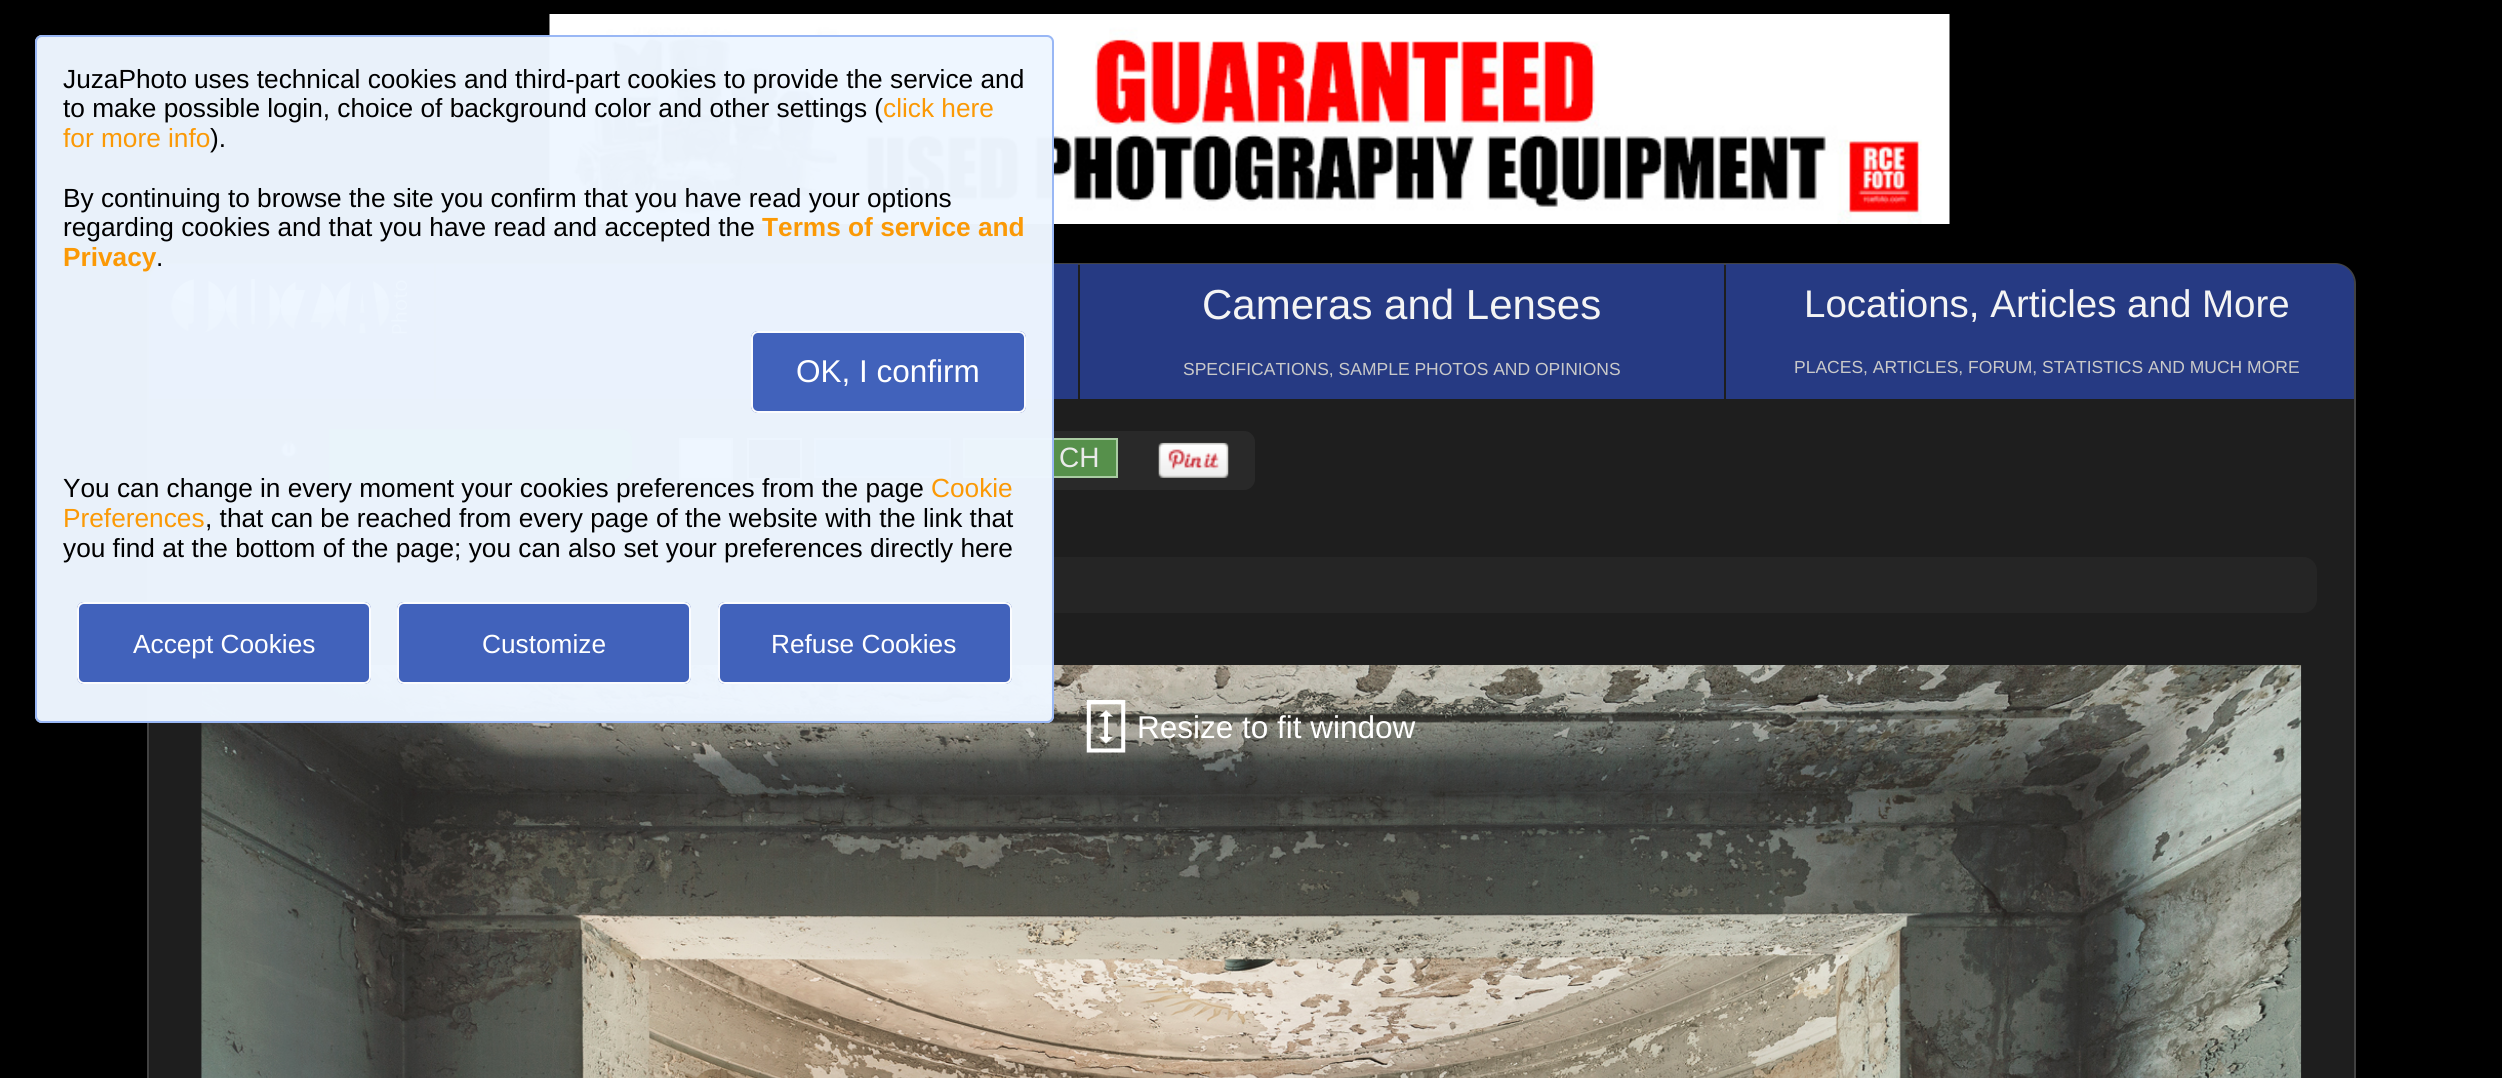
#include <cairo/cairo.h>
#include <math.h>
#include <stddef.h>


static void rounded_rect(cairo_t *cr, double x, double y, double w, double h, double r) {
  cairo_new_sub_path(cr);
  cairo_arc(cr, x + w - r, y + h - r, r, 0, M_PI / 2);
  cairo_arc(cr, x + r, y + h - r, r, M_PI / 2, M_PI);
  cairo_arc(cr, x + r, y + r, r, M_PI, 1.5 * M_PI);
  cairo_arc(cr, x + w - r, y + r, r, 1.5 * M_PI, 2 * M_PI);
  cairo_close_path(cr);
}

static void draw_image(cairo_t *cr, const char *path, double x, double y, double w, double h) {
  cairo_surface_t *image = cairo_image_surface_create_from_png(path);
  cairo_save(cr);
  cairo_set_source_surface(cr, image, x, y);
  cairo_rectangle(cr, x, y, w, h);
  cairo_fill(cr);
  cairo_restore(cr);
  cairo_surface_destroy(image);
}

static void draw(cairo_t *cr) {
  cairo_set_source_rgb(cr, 0, 0, 0);
  cairo_paint(cr);
  draw_image(cr, "images/1.png", 549, 14, 1401, 210);
  cairo_set_source_rgb(cr, 30 / 255.0, 30 / 255.0, 30 / 255.0);
  rounded_rect(cr, 148, 264, 2207, 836, 20);
  cairo_fill_preserve(cr);
  cairo_set_source_rgb(cr, 66 / 255.0, 66 / 255.0, 66 / 255.0);
  cairo_stroke(cr);
  cairo_set_source_rgba(cr, 39 / 255.0, 60 / 255.0, 137 / 255.0, 0.95);
  cairo_new_path(cr);
  cairo_move_to(cr, 168, 264);
  cairo_line_to(cr, 434, 264);
  cairo_line_to(cr, 434, 399);
  cairo_line_to(cr, 149, 399);
  cairo_line_to(cr, 149, 283);
  cairo_curve_to(cr, 149, 272.5, 157.5, 264, 168, 264);
  cairo_close_path(cr);
  cairo_fill(cr);
  draw_image(cr, "images/2.png", 171, 279, 236, 55);
  cairo_rectangle(cr, 436, 264, 642, 135);
  cairo_fill(cr);
  cairo_set_source_rgb(cr, 41 / 255.0, 41 / 255.0, 41 / 255.0);
  cairo_new_path(cr);
  cairo_move_to(cr, 184, 429);
  cairo_line_to(cr, 327, 429);
  cairo_line_to(cr, 327, 481);
  cairo_line_to(cr, 184, 481);
  cairo_curve_to(cr, 178, 481, 173, 476, 173, 470);
  cairo_line_to(cr, 173, 440);
  cairo_curve_to(cr, 173, 434, 178, 429, 184, 429);
  cairo_close_path(cr);
  cairo_fill(cr);
  draw_image(cr, "images/3.png", 279, 440, 20, 19);
  cairo_set_source_rgb(cr, 0, 128 / 255.0, 0);
  cairo_new_path(cr);
  cairo_move_to(cr, 329, 429);
  cairo_line_to(cr, 621, 429);
  cairo_curve_to(cr, 627, 429, 632, 434, 632, 440);
  cairo_line_to(cr, 632, 470);
  cairo_curve_to(cr, 632, 476, 627, 481, 621, 481);
  cairo_line_to(cr, 329, 481);
  cairo_close_path(cr);
  cairo_fill(cr);
  cairo_set_source_rgb(cr, 41 / 255.0, 41 / 255.0, 41 / 255.0);
  rounded_rect(cr, 655, 431, 600, 59, 11);
  cairo_fill(cr);
  cairo_set_source_rgb(cr, 234 / 255.0, 234 / 255.0, 234 / 255.0);
  cairo_rectangle(cr, 680, 439, 52, 40);
  cairo_fill_preserve(cr);
  cairo_set_source_rgb(cr, 187 / 255.0, 187 / 255.0, 187 / 255.0);
  cairo_stroke(cr);
  cairo_set_source_rgb(cr, 4 / 255.0, 4 / 255.0, 4 / 255.0);
  cairo_rectangle(cr, 748, 439, 53, 40);
  cairo_fill_preserve(cr);
  cairo_set_source_rgb(cr, 187 / 255.0, 187 / 255.0, 187 / 255.0);
  cairo_stroke(cr);
  cairo_set_source_rgb(cr, 129 / 255.0, 150 / 255.0, 211 / 255.0);
  cairo_rectangle(cr, 814, 438, 136, 2);
  cairo_fill(cr);
  cairo_rectangle(cr, 814, 476, 37, 2);
  cairo_fill(cr);
  cairo_rectangle(cr, 814, 438, 2, 40);
  cairo_fill(cr);
  cairo_set_source_rgb(cr, 54 / 255.0, 80 / 255.0, 157 / 255.0);
  cairo_rectangle(cr, 816, 440, 133, 36);
  cairo_fill(cr);
  cairo_set_source_rgb(cr, 129 / 255.0, 150 / 255.0, 211 / 255.0);
  cairo_rectangle(cr, 949, 438, 2, 40);
  cairo_fill(cr);
  cairo_set_source_rgb(cr, 86 / 255.0, 144 / 255.0, 75 / 255.0);
  cairo_rectangle(cr, 964, 439, 153, 38);
  cairo_fill_preserve(cr);
  cairo_set_source_rgb(cr, 170 / 255.0, 204 / 255.0, 163 / 255.0);
  cairo_stroke(cr);
  cairo_set_source_rgb(cr, 129 / 255.0, 150 / 255.0, 211 / 255.0);
  cairo_rectangle(cr, 851, 476, 99, 2);
  cairo_fill(cr);
  cairo_set_source_rgb(cr, 37 / 255.0, 37 / 255.0, 37 / 255.0);
  rounded_rect(cr, 172, 557, 2145, 56, 14);
  cairo_fill(cr);
  draw_image(cr, "images/5.png", 201, 665, 2101, 413);
  cairo_set_source_rgba(cr, 237 / 255.0, 245 / 255.0, 1, 0.98);
  rounded_rect(cr, 35, 35, 1019, 688, 7);
  cairo_fill(cr);
  rounded_rect(cr, 36, 36, 1017, 686, 6);
  cairo_set_source_rgba(cr, 151 / 255.0, 181 / 255.0, 244 / 255.0, 0.98);
  cairo_stroke(cr);
  cairo_set_source_rgba(cr, 61 / 255.0, 95 / 255.0, 186 / 255.0, 0.98);
  rounded_rect(cr, 751, 331, 275, 82, 7);
  cairo_fill(cr);
  rounded_rect(cr, 752, 332, 273, 80, 6);
  cairo_set_source_rgba(cr, 1, 1, 1, 0.98);
  cairo_stroke(cr);
  cairo_set_source_rgba(cr, 61 / 255.0, 95 / 255.0, 186 / 255.0, 0.98);
  rounded_rect(cr, 77, 602, 294, 82, 7);
  cairo_fill(cr);
  rounded_rect(cr, 78, 603, 292, 80, 6);
  cairo_set_source_rgba(cr, 1, 1, 1, 0.98);
  cairo_stroke(cr);
  cairo_set_source_rgba(cr, 61 / 255.0, 95 / 255.0, 186 / 255.0, 0.98);
  rounded_rect(cr, 397, 602, 294, 82, 7);
  cairo_fill(cr);
  rounded_rect(cr, 398, 603, 292, 80, 6);
  cairo_set_source_rgba(cr, 1, 1, 1, 0.98);
  cairo_stroke(cr);
  cairo_set_source_rgba(cr, 61 / 255.0, 95 / 255.0, 186 / 255.0, 0.98);
  rounded_rect(cr, 718, 602, 294, 82, 7);
  cairo_fill(cr);
  rounded_rect(cr, 719, 603, 292, 80, 6);
  cairo_set_source_rgba(cr, 1, 1, 1, 0.98);
  cairo_stroke(cr);
  cairo_set_source_rgba(cr, 39 / 255.0, 60 / 255.0, 137 / 255.0, 0.95);
  cairo_rectangle(cr, 1080, 264, 644, 135);
  cairo_fill(cr);
  cairo_new_path(cr);
  cairo_move_to(cr, 1726, 264);
  cairo_line_to(cr, 2335, 264);
  cairo_curve_to(cr, 2345.5, 264, 2354, 272.5, 2354, 283);
  cairo_line_to(cr, 2354, 399);
  cairo_line_to(cr, 1726, 399);
  cairo_close_path(cr);
  cairo_fill(cr);
  draw_image(cr, "images/4.png", 1158, 442, 71, 36);
  draw_image(cr, "images/6.png", 1086, 700, 40, 53);
  cairo_select_font_face(cr, "Liberation Sans", CAIRO_FONT_SLANT_NORMAL, CAIRO_FONT_WEIGHT_NORMAL);
  cairo_set_font_size(cr, 26.25);
  cairo_set_source_rgb(cr, 0, 0, 0);
  cairo_move_to(cr, 63, 88);
  cairo_show_text(cr, "JuzaPhoto");
  cairo_move_to(cr, 194, 88);
  cairo_show_text(cr, "uses technical cookies and third-part cookies to provide the service and");
  cairo_move_to(cr, 63, 117);
  cairo_show_text(cr, "to make possible login, choice of background color and other settings (");
  cairo_set_source_rgb(cr, 251 / 255.0, 153 / 255.0, 5 / 255.0);
  cairo_move_to(cr, 883, 117);
  cairo_show_text(cr, "click here");
  cairo_move_to(cr, 63, 147);
  cairo_show_text(cr, "for more info");
  cairo_set_source_rgb(cr, 0, 0, 0);
  cairo_move_to(cr, 210, 147);
  cairo_show_text(cr, ").");
  cairo_move_to(cr, 63, 207);
  cairo_show_text(cr, "By continuing to browse the site you confirm that you have read your options");
  cairo_move_to(cr, 63, 236);
  cairo_show_text(cr, "regarding cookies and that you have read and accepted the");
  cairo_select_font_face(cr, "Liberation Sans", CAIRO_FONT_SLANT_NORMAL, CAIRO_FONT_WEIGHT_BOLD);
  cairo_set_source_rgb(cr, 251 / 255.0, 153 / 255.0, 5 / 255.0);
  cairo_move_to(cr, 762, 236);
  cairo_show_text(cr, "Terms of service and");
  cairo_move_to(cr, 63, 266);
  cairo_show_text(cr, "Privacy");
  cairo_select_font_face(cr, "Liberation Sans", CAIRO_FONT_SLANT_NORMAL, CAIRO_FONT_WEIGHT_NORMAL);
  cairo_set_source_rgb(cr, 0, 0, 0);
  cairo_move_to(cr, 156, 266);
  cairo_show_text(cr, ".");
  cairo_set_font_size(cr, 31.5);
  cairo_set_source_rgb(cr, 1, 1, 1);
  cairo_move_to(cr, 796, 382);
  cairo_show_text(cr, "OK, I confirm");
  cairo_set_font_size(cr, 26.25);
  cairo_set_source_rgb(cr, 0, 0, 0);
  cairo_move_to(cr, 63, 497);
  cairo_show_text(cr, "You can change in every moment your cookies preferences from the page");
  cairo_set_source_rgb(cr, 251 / 255.0, 153 / 255.0, 5 / 255.0);
  cairo_move_to(cr, 931, 497);
  cairo_show_text(cr, "Cookie");
  cairo_move_to(cr, 63, 527);
  cairo_show_text(cr, "Preferences");
  cairo_set_source_rgb(cr, 0, 0, 0);
  cairo_move_to(cr, 205, 527);
  cairo_show_text(cr, ", that can be reached from every page of the website with the link that");
  cairo_move_to(cr, 63, 557);
  cairo_show_text(cr, "you find at the bottom of the page; you can also set your preferences directly here");
  cairo_set_source_rgb(cr, 1, 1, 1);
  cairo_move_to(cr, 133, 653);
  cairo_show_text(cr, "Accept Cookies");
  cairo_move_to(cr, 482, 653);
  cairo_show_text(cr, "Customize");
  cairo_move_to(cr, 771, 653);
  cairo_show_text(cr, "Refuse Cookies");
  cairo_set_font_size(cr, 42);
  cairo_set_source_rgb(cr, 244 / 255.0, 244 / 255.0, 244 / 255.0);
  cairo_move_to(cr, 1202, 319);
  cairo_show_text(cr, "Cameras and Lenses");
  cairo_set_font_size(cr, 17.5);
  cairo_set_source_rgb(cr, 201 / 255.0, 201 / 255.0, 201 / 255.0);
  cairo_move_to(cr, 1183, 375);
  cairo_show_text(cr, "SPECIFICATIONS, SAMPLE PHOTOS AND OPINIONS");
  cairo_set_font_size(cr, 38.5);
  cairo_set_source_rgb(cr, 244 / 255.0, 244 / 255.0, 244 / 255.0);
  cairo_move_to(cr, 1804, 317);
  cairo_show_text(cr, "Locations, Articles and More");
  cairo_set_font_size(cr, 17.5);
  cairo_set_source_rgb(cr, 201 / 255.0, 201 / 255.0, 201 / 255.0);
  cairo_move_to(cr, 1794, 373);
  cairo_show_text(cr, "PLACES, ARTICLES, FORUM, STATISTICS AND MUCH MORE");
  cairo_set_font_size(cr, 28);
  cairo_set_source_rgb(cr, 234 / 255.0, 234 / 255.0, 234 / 255.0);
  cairo_move_to(cr, 1059, 467);
  cairo_show_text(cr, "CH");
  cairo_set_font_size(cr, 31.5);
  cairo_set_source_rgb(cr, 1, 1, 1);
  cairo_move_to(cr, 1137, 738);
  cairo_show_text(cr, "Resize to fit window");
}

int main(void) {
  cairo_surface_t *surface = cairo_image_surface_create(CAIRO_FORMAT_RGB24, 2502, 1078);
  cairo_t *cr = cairo_create(surface);
  cairo_font_options_t *options = cairo_font_options_create();
  cairo_font_options_set_hint_metrics(options, CAIRO_HINT_METRICS_OFF);
  cairo_font_options_set_hint_style(options, CAIRO_HINT_STYLE_NONE);
  cairo_set_font_options(cr, options);
  cairo_set_miter_limit(cr, 4);
  draw(cr);
  cairo_surface_write_to_png(surface, "out.png");
  cairo_font_options_destroy(options);
  cairo_destroy(cr);
  cairo_surface_destroy(surface);
  return 0;
}
